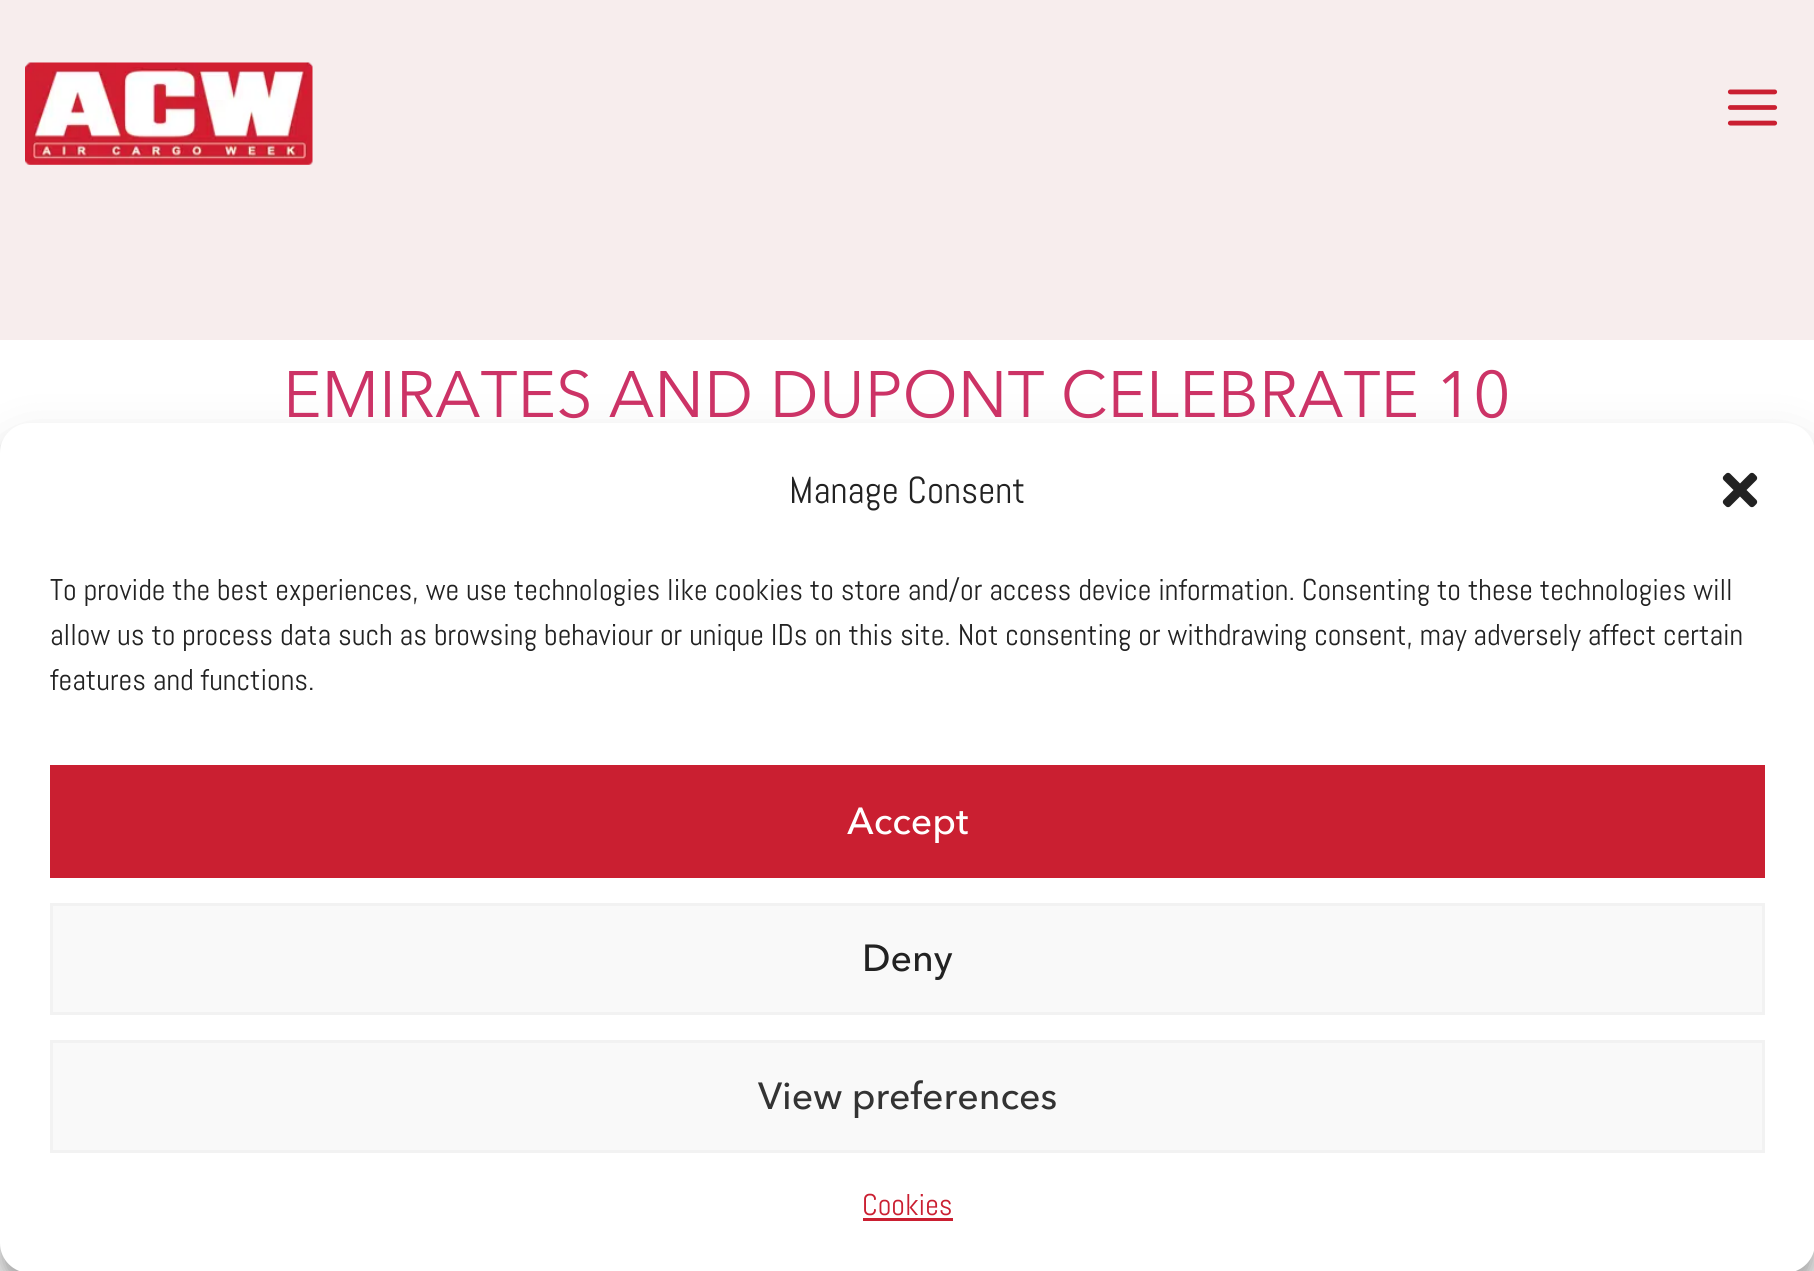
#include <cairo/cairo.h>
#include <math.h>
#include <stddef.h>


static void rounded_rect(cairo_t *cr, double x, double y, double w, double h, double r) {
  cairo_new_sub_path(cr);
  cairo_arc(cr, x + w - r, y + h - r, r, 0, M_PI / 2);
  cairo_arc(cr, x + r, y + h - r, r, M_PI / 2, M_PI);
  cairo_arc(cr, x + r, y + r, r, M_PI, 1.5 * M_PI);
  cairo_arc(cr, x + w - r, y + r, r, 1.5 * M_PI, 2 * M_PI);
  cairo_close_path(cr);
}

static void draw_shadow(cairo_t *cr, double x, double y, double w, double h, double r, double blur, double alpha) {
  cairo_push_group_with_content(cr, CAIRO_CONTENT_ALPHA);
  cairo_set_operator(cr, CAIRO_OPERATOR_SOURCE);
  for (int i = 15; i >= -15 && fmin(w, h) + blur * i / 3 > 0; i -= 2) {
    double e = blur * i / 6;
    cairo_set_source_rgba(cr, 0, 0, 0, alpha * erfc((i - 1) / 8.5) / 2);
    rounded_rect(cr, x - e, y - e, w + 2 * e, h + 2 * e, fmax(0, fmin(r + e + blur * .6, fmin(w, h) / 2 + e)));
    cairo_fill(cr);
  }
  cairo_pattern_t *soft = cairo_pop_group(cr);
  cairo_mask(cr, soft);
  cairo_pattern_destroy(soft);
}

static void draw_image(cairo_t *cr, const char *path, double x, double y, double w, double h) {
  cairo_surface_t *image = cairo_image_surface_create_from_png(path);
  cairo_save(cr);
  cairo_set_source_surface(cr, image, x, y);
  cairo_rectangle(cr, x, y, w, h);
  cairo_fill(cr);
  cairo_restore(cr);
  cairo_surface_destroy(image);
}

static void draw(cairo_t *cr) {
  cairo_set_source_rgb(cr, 1, 1, 1);
  cairo_paint(cr);
  cairo_set_source_rgb(cr, 247 / 255.0, 237 / 255.0, 237 / 255.0);
  cairo_rectangle(cr, 0, 0, 1814, 340);
  cairo_fill(cr);
  draw_image(cr, "images/1.png", 25, 62, 288, 103);
  draw_image(cr, "images/2.png", 1727, 89, 51, 37);
  cairo_set_source_rgb(cr, 0, 0, 0);
  draw_shadow(cr, 0, 438, 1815, 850, 30, 7.5, 0.23);
  draw_shadow(cr, 0, 448, 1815, 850, 30, 25, 0.19);
  cairo_set_source_rgb(cr, 1, 1, 1);
  rounded_rect(cr, 0, 423, 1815, 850, 30);
  cairo_fill(cr);
  draw_image(cr, "images/3.png", 1722, 472, 36, 36);
  cairo_set_source_rgb(cr, 202 / 255.0, 31 / 255.0, 49 / 255.0);
  cairo_rectangle(cr, 50, 765, 1715, 113);
  cairo_fill(cr);
  cairo_set_source_rgb(cr, 249 / 255.0, 249 / 255.0, 249 / 255.0);
  cairo_rectangle(cr, 51.5, 904.5, 1712, 109);
  cairo_fill_preserve(cr);
  cairo_set_source_rgb(cr, 242 / 255.0, 242 / 255.0, 242 / 255.0);
  cairo_set_line_width(cr, 3);
  cairo_stroke(cr);
  cairo_set_source_rgb(cr, 249 / 255.0, 249 / 255.0, 249 / 255.0);
  cairo_rectangle(cr, 51.5, 1041.5, 1712, 110);
  cairo_fill_preserve(cr);
  cairo_set_source_rgb(cr, 242 / 255.0, 242 / 255.0, 242 / 255.0);
  cairo_stroke(cr);
  cairo_set_source_rgb(cr, 202 / 255.0, 31 / 255.0, 49 / 255.0);
  cairo_rectangle(cr, 863, 1218, 90, 3);
  cairo_fill(cr);
  cairo_select_font_face(cr, "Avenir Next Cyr", CAIRO_FONT_SLANT_NORMAL, CAIRO_FONT_WEIGHT_NORMAL);
  cairo_set_font_size(cr, 65);
  cairo_set_source_rgb(cr, 204 / 255.0, 51 / 255.0, 102 / 255.0);
  cairo_move_to(cr, 283, 417);
  cairo_show_text(cr, "EMIRATES AND DUPONT CELEBRATE 10");
  cairo_select_font_face(cr, "Abel", CAIRO_FONT_SLANT_NORMAL, CAIRO_FONT_WEIGHT_NORMAL);
  cairo_set_font_size(cr, 37.5);
  cairo_set_source_rgb(cr, 34 / 255.0, 34 / 255.0, 34 / 255.0);
  cairo_move_to(cr, 789, 503);
  cairo_show_text(cr, "Manage Consent");
  cairo_set_font_size(cr, 30);
  cairo_move_to(cr, 50, 600);
  cairo_show_text(cr, "To provide the best experiences, we use technologies like cookies to store and/or access device information. Consenting to these technologies will");
  cairo_move_to(cr, 50, 645);
  cairo_show_text(cr, "allow us to process data such as browsing behaviour or unique IDs on this site. Not consenting or withdrawing consent, may adversely affect certain");
  cairo_move_to(cr, 50, 690);
  cairo_show_text(cr, "features and functions.");
  cairo_select_font_face(cr, "Avenir Next Cyr Medium", CAIRO_FONT_SLANT_NORMAL, CAIRO_FONT_WEIGHT_NORMAL);
  cairo_set_font_size(cr, 37.5);
  cairo_set_source_rgb(cr, 1, 1, 1);
  cairo_move_to(cr, 847, 834);
  cairo_show_text(cr, "Accept");
  cairo_set_source_rgb(cr, 34 / 255.0, 34 / 255.0, 34 / 255.0);
  cairo_move_to(cr, 862, 971);
  cairo_show_text(cr, "Deny");
  cairo_set_source_rgb(cr, 51 / 255.0, 51 / 255.0, 51 / 255.0);
  cairo_move_to(cr, 758, 1109);
  cairo_show_text(cr, "View preferences");
  cairo_select_font_face(cr, "Abel", CAIRO_FONT_SLANT_NORMAL, CAIRO_FONT_WEIGHT_NORMAL);
  cairo_set_font_size(cr, 30);
  cairo_set_source_rgb(cr, 202 / 255.0, 31 / 255.0, 49 / 255.0);
  cairo_move_to(cr, 862, 1215);
  cairo_show_text(cr, "Cookies");
}

int main(void) {
  cairo_surface_t *surface = cairo_image_surface_create(CAIRO_FORMAT_RGB24, 1814, 1271);
  cairo_t *cr = cairo_create(surface);
  cairo_font_options_t *options = cairo_font_options_create();
  cairo_font_options_set_hint_metrics(options, CAIRO_HINT_METRICS_OFF);
  cairo_font_options_set_hint_style(options, CAIRO_HINT_STYLE_NONE);
  cairo_set_font_options(cr, options);
  cairo_set_miter_limit(cr, 4);
  draw(cr);
  cairo_surface_write_to_png(surface, "out.png");
  cairo_font_options_destroy(options);
  cairo_destroy(cr);
  cairo_surface_destroy(surface);
  return 0;
}
